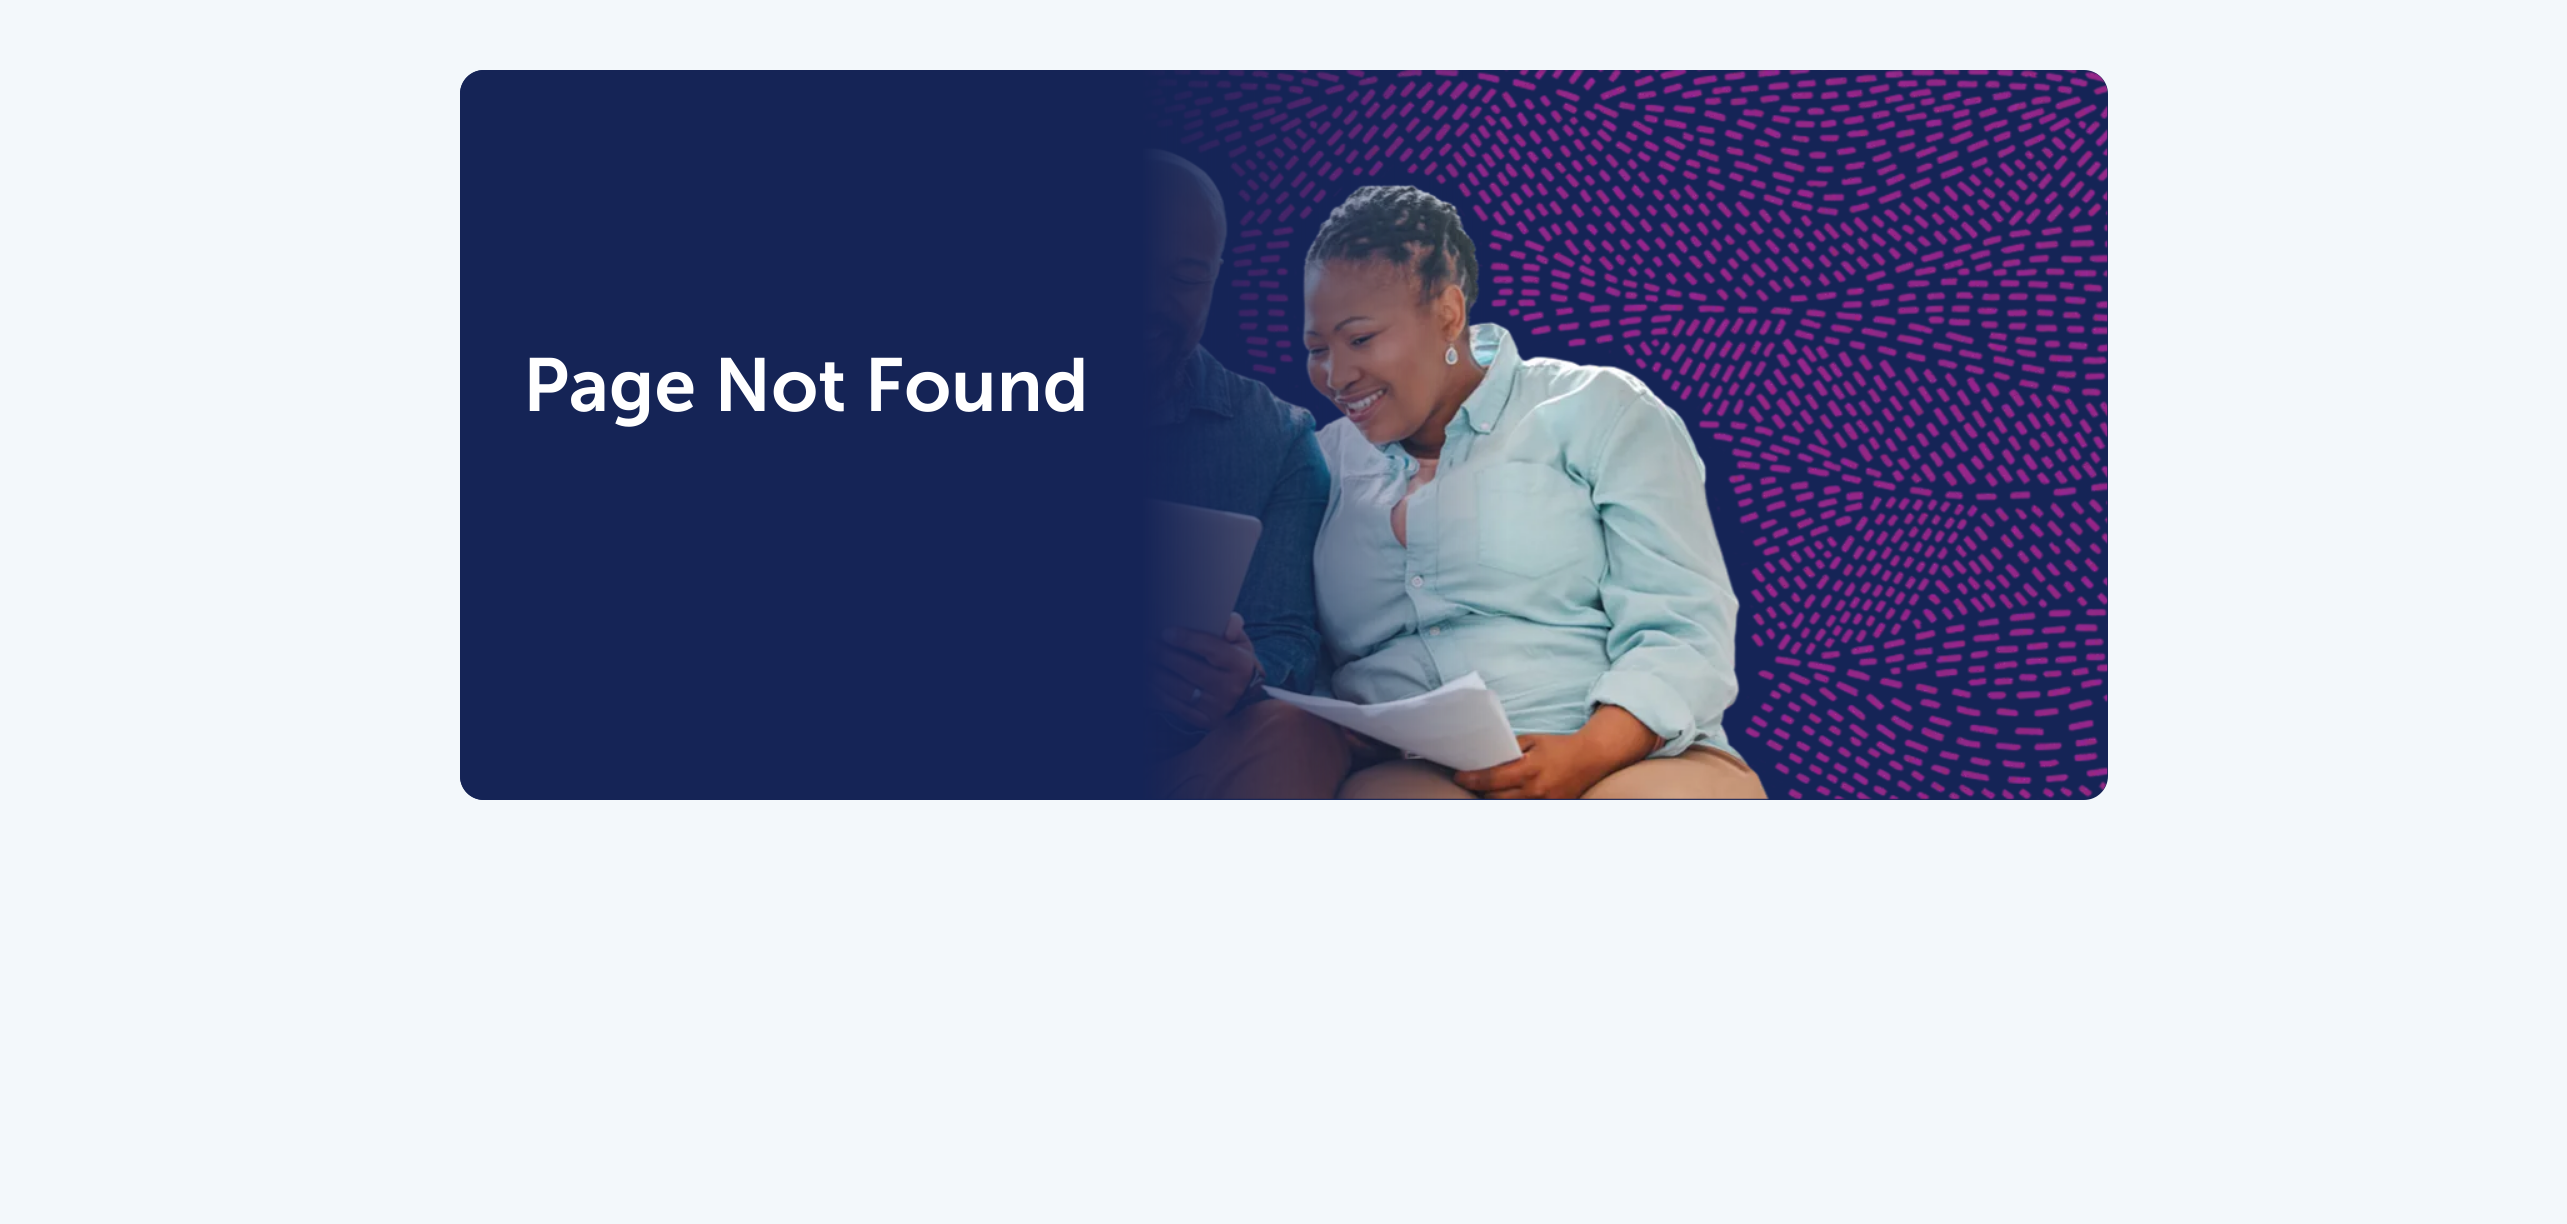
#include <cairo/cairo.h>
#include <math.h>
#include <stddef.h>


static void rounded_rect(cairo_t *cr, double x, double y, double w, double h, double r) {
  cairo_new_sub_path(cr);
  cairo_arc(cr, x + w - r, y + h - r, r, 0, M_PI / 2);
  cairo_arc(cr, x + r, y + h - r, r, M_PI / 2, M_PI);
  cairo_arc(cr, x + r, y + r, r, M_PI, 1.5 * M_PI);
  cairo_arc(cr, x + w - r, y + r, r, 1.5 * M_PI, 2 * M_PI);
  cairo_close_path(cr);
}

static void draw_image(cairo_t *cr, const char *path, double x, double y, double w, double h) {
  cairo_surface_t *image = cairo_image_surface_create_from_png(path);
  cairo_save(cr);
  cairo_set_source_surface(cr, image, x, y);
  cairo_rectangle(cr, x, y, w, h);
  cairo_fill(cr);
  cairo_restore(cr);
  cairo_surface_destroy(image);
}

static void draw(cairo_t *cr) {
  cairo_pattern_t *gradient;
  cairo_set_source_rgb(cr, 243 / 255.0, 248 / 255.0, 251 / 255.0);
  cairo_paint(cr);
  cairo_set_source_rgb(cr, 21 / 255.0, 36 / 255.0, 86 / 255.0);
  rounded_rect(cr, 460, 70, 1648, 730, 24);
  cairo_fill(cr);
  draw_image(cr, "images/1.png", 1143, 70, 965, 730);
  gradient = cairo_pattern_create_linear(460, 435, 1508, 435);
  cairo_pattern_add_color_stop_rgba(gradient, 0.65, 21 / 255.0, 36 / 255.0, 86 / 255.0, 1);
  cairo_pattern_add_color_stop_rgba(gradient, 1, 21 / 255.0, 36 / 255.0, 86 / 255.0, 0);
  cairo_set_source(cr, gradient);
  cairo_pattern_destroy(gradient);
  cairo_new_path(cr);
  cairo_move_to(cr, 484, 70);
  cairo_line_to(cr, 1508, 70);
  cairo_line_to(cr, 1508, 800);
  cairo_line_to(cr, 484, 800);
  cairo_curve_to(cr, 470.5, 800, 460, 789.5, 460, 776);
  cairo_line_to(cr, 460, 94);
  cairo_curve_to(cr, 460, 80.5, 470.5, 70, 484, 70);
  cairo_close_path(cr);
  cairo_fill(cr);
  cairo_select_font_face(cr, "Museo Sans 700 SemiBold", CAIRO_FONT_SLANT_NORMAL, CAIRO_FONT_WEIGHT_NORMAL);
  cairo_set_font_size(cr, 75);
  cairo_set_source_rgb(cr, 1, 1, 1);
  cairo_move_to(cr, 523, 411);
  cairo_show_text(cr, "Page Not Found");
}

int main(void) {
  cairo_surface_t *surface = cairo_image_surface_create(CAIRO_FORMAT_RGB24, 2567, 1224);
  cairo_t *cr = cairo_create(surface);
  cairo_font_options_t *options = cairo_font_options_create();
  cairo_font_options_set_hint_metrics(options, CAIRO_HINT_METRICS_OFF);
  cairo_font_options_set_hint_style(options, CAIRO_HINT_STYLE_NONE);
  cairo_set_font_options(cr, options);
  cairo_set_miter_limit(cr, 4);
  draw(cr);
  cairo_surface_write_to_png(surface, "out.png");
  cairo_font_options_destroy(options);
  cairo_destroy(cr);
  cairo_surface_destroy(surface);
  return 0;
}
